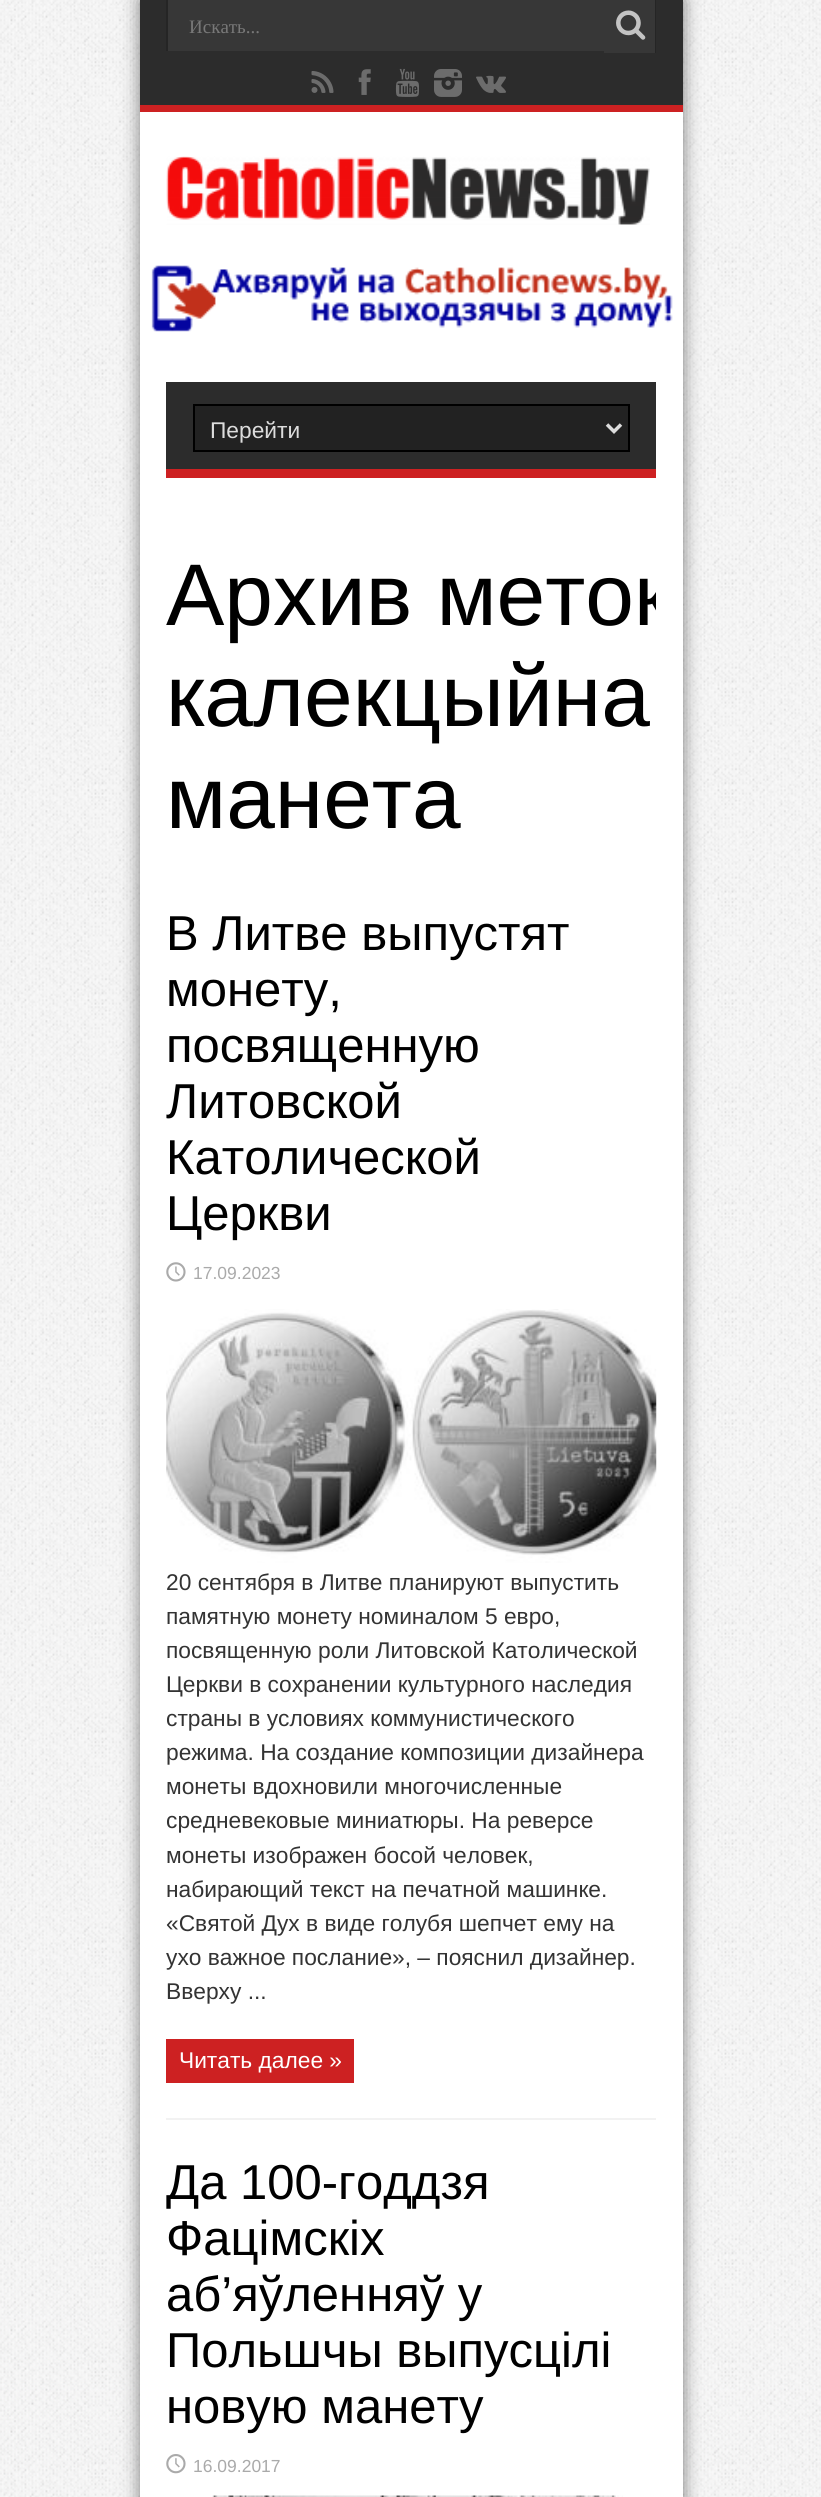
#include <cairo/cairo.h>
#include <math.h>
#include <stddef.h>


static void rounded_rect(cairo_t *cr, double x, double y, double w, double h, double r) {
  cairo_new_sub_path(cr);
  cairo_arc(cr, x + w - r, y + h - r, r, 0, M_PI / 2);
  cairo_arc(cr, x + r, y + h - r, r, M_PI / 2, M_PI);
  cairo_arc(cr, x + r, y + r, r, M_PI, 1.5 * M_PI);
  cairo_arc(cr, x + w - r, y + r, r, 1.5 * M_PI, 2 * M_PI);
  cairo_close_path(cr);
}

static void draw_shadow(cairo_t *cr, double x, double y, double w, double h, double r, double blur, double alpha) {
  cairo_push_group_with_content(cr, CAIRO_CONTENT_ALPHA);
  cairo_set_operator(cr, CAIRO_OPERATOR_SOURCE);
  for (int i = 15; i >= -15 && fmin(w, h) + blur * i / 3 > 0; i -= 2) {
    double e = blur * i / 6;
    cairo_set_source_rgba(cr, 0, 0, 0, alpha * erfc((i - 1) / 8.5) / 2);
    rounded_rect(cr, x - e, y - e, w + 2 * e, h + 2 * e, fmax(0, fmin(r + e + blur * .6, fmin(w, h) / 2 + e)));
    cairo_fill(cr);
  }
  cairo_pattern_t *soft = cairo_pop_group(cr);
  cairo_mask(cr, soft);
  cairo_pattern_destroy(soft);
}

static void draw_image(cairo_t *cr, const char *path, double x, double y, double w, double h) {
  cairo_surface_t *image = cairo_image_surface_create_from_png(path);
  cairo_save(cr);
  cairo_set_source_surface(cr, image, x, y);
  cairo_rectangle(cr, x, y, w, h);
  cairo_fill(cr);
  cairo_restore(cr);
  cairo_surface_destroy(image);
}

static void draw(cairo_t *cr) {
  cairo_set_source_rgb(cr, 1, 1, 1);
  cairo_paint(cr);
  draw_image(cr, "images/1.png", 0, 0, 821, 2497);
  cairo_set_source_rgb(cr, 0, 0, 0);
  draw_shadow(cr, 140, 0, 543, 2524, 0, 9, 0.5);
  cairo_set_source_rgb(cr, 1, 1, 1);
  cairo_rectangle(cr, 140, 112, 543, 2385);
  cairo_fill(cr);
  cairo_set_source_rgb(cr, 44 / 255.0, 44 / 255.0, 44 / 255.0);
  cairo_rectangle(cr, 140, 0, 543, 105);
  cairo_fill(cr);
  cairo_set_source_rgb(cr, 205 / 255.0, 33 / 255.0, 34 / 255.0);
  cairo_rectangle(cr, 140, 105, 543, 7);
  cairo_fill(cr);
  cairo_set_source_rgb(cr, 55 / 255.0, 55 / 255.0, 55 / 255.0);
  cairo_rectangle(cr, 168, 0, 436, 51);
  cairo_fill(cr);
  cairo_set_source_rgb(cr, 37 / 255.0, 37 / 255.0, 37 / 255.0);
  cairo_rectangle(cr, 166, 0, 2, 51);
  cairo_fill(cr);
  cairo_set_source_rgb(cr, 55 / 255.0, 55 / 255.0, 55 / 255.0);
  cairo_rectangle(cr, 604, 0, 51, 53);
  cairo_fill(cr);
  cairo_set_source_rgb(cr, 37 / 255.0, 37 / 255.0, 37 / 255.0);
  cairo_rectangle(cr, 655, 0, 1, 53);
  cairo_fill(cr);
  draw_image(cr, "images/2.png", 616, 10, 30, 30);
  draw_image(cr, "images/3.png", 311, 71, 23, 22);
  draw_image(cr, "images/4.png", 358, 69, 13, 26);
  draw_image(cr, "images/5.png", 395, 68, 24, 29);
  draw_image(cr, "images/6.png", 434, 69, 28, 28);
  draw_image(cr, "images/7.png", 476, 75, 30, 18);
  draw_image(cr, "images/8.png", 166, 156, 484, 69);
  draw_image(cr, "images/9.png", 151, 265, 522, 67);
  cairo_set_source_rgb(cr, 44 / 255.0, 44 / 255.0, 44 / 255.0);
  cairo_rectangle(cr, 166, 382, 490, 87);
  cairo_fill(cr);
  cairo_set_source_rgb(cr, 205 / 255.0, 33 / 255.0, 34 / 255.0);
  cairo_rectangle(cr, 166, 469, 490, 9);
  cairo_fill(cr);
  cairo_set_source_rgb(cr, 34 / 255.0, 34 / 255.0, 34 / 255.0);
  cairo_rectangle(cr, 194, 405, 435, 46);
  cairo_fill_preserve(cr);
  cairo_set_source_rgb(cr, 0, 0, 0);
  cairo_stroke(cr);
  cairo_new_path(cr);
  cairo_move_to(cr, 607, 424.5);
  cairo_line_to(cr, 614, 431.5);
  cairo_line_to(cr, 621, 424.5);
  cairo_set_source_rgb(cr, 221 / 255.0, 221 / 255.0, 221 / 255.0);
  cairo_set_line_width(cr, 3.5);
  cairo_stroke(cr);
  cairo_set_source_rgb(cr, 242 / 255.0, 242 / 255.0, 242 / 255.0);
  cairo_rectangle(cr, 166, 2118, 490, 2);
  cairo_fill(cr);
  draw_image(cr, "images/10.png", 166, 1262, 20, 20);
  draw_image(cr, "images/11.png", 166, 1309, 491, 254);
  cairo_set_source_rgb(cr, 205 / 255.0, 33 / 255.0, 34 / 255.0);
  cairo_rectangle(cr, 166, 2039, 188, 44);
  cairo_fill(cr);
  draw_image(cr, "images/12.png", 166, 2454, 20, 20);
  draw_image(cr, "images/13.png", 212, 2495, 411, 2);
  cairo_select_font_face(cr, "Liberation Serif", CAIRO_FONT_SLANT_NORMAL, CAIRO_FONT_WEIGHT_NORMAL);
  cairo_set_font_size(cr, 19);
  cairo_set_source_rgb(cr, 120 / 255.0, 120 / 255.0, 120 / 255.0);
  cairo_move_to(cr, 189, 33);
  cairo_show_text(cr, "Искать...");
  cairo_select_font_face(cr, "Liberation Sans", CAIRO_FONT_SLANT_NORMAL, CAIRO_FONT_WEIGHT_NORMAL);
  cairo_set_font_size(cr, 22.75);
  cairo_set_source_rgb(cr, 221 / 255.0, 221 / 255.0, 221 / 255.0);
  cairo_move_to(cr, 210, 438);
  cairo_show_text(cr, "Перейти");
  cairo_save(cr);
  cairo_rectangle(cr, 166, 539, 490, 333);
  cairo_clip(cr);
  cairo_set_font_size(cr, 87.5);
  cairo_set_source_rgb(cr, 0, 0, 0);
  cairo_move_to(cr, 166, 625);
  cairo_show_text(cr, "Архив меток");
  cairo_restore(cr);
  cairo_set_font_size(cr, 87.5);
  cairo_set_source_rgb(cr, 0, 0, 0);
  cairo_move_to(cr, 166, 726);
  cairo_show_text(cr, "калекцыйна");
  cairo_move_to(cr, 166, 828);
  cairo_show_text(cr, "манета");
  cairo_set_font_size(cr, 49);
  cairo_move_to(cr, 166, 950);
  cairo_show_text(cr, "В Литве выпустят");
  cairo_move_to(cr, 166, 1006);
  cairo_show_text(cr, "монету,");
  cairo_move_to(cr, 166, 1062);
  cairo_show_text(cr, "посвященную");
  cairo_move_to(cr, 166, 1118);
  cairo_show_text(cr, "Литовской");
  cairo_move_to(cr, 166, 1174);
  cairo_show_text(cr, "Католической");
  cairo_move_to(cr, 166, 1230);
  cairo_show_text(cr, "Церкви");
  cairo_set_font_size(cr, 17.5);
  cairo_set_source_rgb(cr, 170 / 255.0, 170 / 255.0, 170 / 255.0);
  cairo_move_to(cr, 193, 1279);
  cairo_show_text(cr, "17.09.2023");
  cairo_set_font_size(cr, 22.75);
  cairo_set_source_rgb(cr, 51 / 255.0, 51 / 255.0, 51 / 255.0);
  cairo_move_to(cr, 166, 1590);
  cairo_show_text(cr, "20 сентября в Литве планируют выпустить");
  cairo_move_to(cr, 166, 1624);
  cairo_show_text(cr, "памятную монету номиналом 5 евро,");
  cairo_move_to(cr, 166, 1658);
  cairo_show_text(cr, "посвященную роли Литовской Католической");
  cairo_move_to(cr, 166, 1692);
  cairo_show_text(cr, "Церкви в сохранении культурного наследия");
  cairo_move_to(cr, 166, 1726);
  cairo_show_text(cr, "страны в условиях коммунистического");
  cairo_move_to(cr, 166, 1760);
  cairo_show_text(cr, "режима. На создание композиции дизайнера");
  cairo_move_to(cr, 166, 1794);
  cairo_show_text(cr, "монеты вдохновили многочисленные");
  cairo_move_to(cr, 166, 1828);
  cairo_show_text(cr, "средневековые миниатюры. На реверсе");
  cairo_move_to(cr, 166, 1863);
  cairo_show_text(cr, "монеты изображен босой человек,");
  cairo_move_to(cr, 166, 1897);
  cairo_show_text(cr, "набирающий текст на печатной машинке.");
  cairo_move_to(cr, 166, 1931);
  cairo_show_text(cr, "«Святой Дух в виде голубя шепчет ему на");
  cairo_move_to(cr, 166, 1965);
  cairo_show_text(cr, "ухо важное послание», – пояснил дизайнер.");
  cairo_move_to(cr, 166, 1999);
  cairo_show_text(cr, "Вверху ...");
  cairo_set_source_rgb(cr, 1, 1, 1);
  cairo_move_to(cr, 179, 2068);
  cairo_show_text(cr, "Читать далее »");
  cairo_set_font_size(cr, 49);
  cairo_set_source_rgb(cr, 0, 0, 0);
  cairo_move_to(cr, 166, 2199);
  cairo_show_text(cr, "Да 100-годдзя");
  cairo_move_to(cr, 166, 2255);
  cairo_show_text(cr, "Фацімскіх");
  cairo_move_to(cr, 166, 2311);
  cairo_show_text(cr, "аб’яўленняў у");
  cairo_move_to(cr, 166, 2367);
  cairo_show_text(cr, "Польшчы выпусцілі");
  cairo_move_to(cr, 166, 2423);
  cairo_show_text(cr, "новую манету");
  cairo_set_font_size(cr, 17.5);
  cairo_set_source_rgb(cr, 170 / 255.0, 170 / 255.0, 170 / 255.0);
  cairo_move_to(cr, 193, 2472);
  cairo_show_text(cr, "16.09.2017");
}

int main(void) {
  cairo_surface_t *surface = cairo_image_surface_create(CAIRO_FORMAT_RGB24, 821, 2497);
  cairo_t *cr = cairo_create(surface);
  cairo_font_options_t *options = cairo_font_options_create();
  cairo_font_options_set_hint_metrics(options, CAIRO_HINT_METRICS_OFF);
  cairo_font_options_set_hint_style(options, CAIRO_HINT_STYLE_NONE);
  cairo_set_font_options(cr, options);
  cairo_set_miter_limit(cr, 4);
  draw(cr);
  cairo_surface_write_to_png(surface, "out.png");
  cairo_font_options_destroy(options);
  cairo_destroy(cr);
  cairo_surface_destroy(surface);
  return 0;
}
